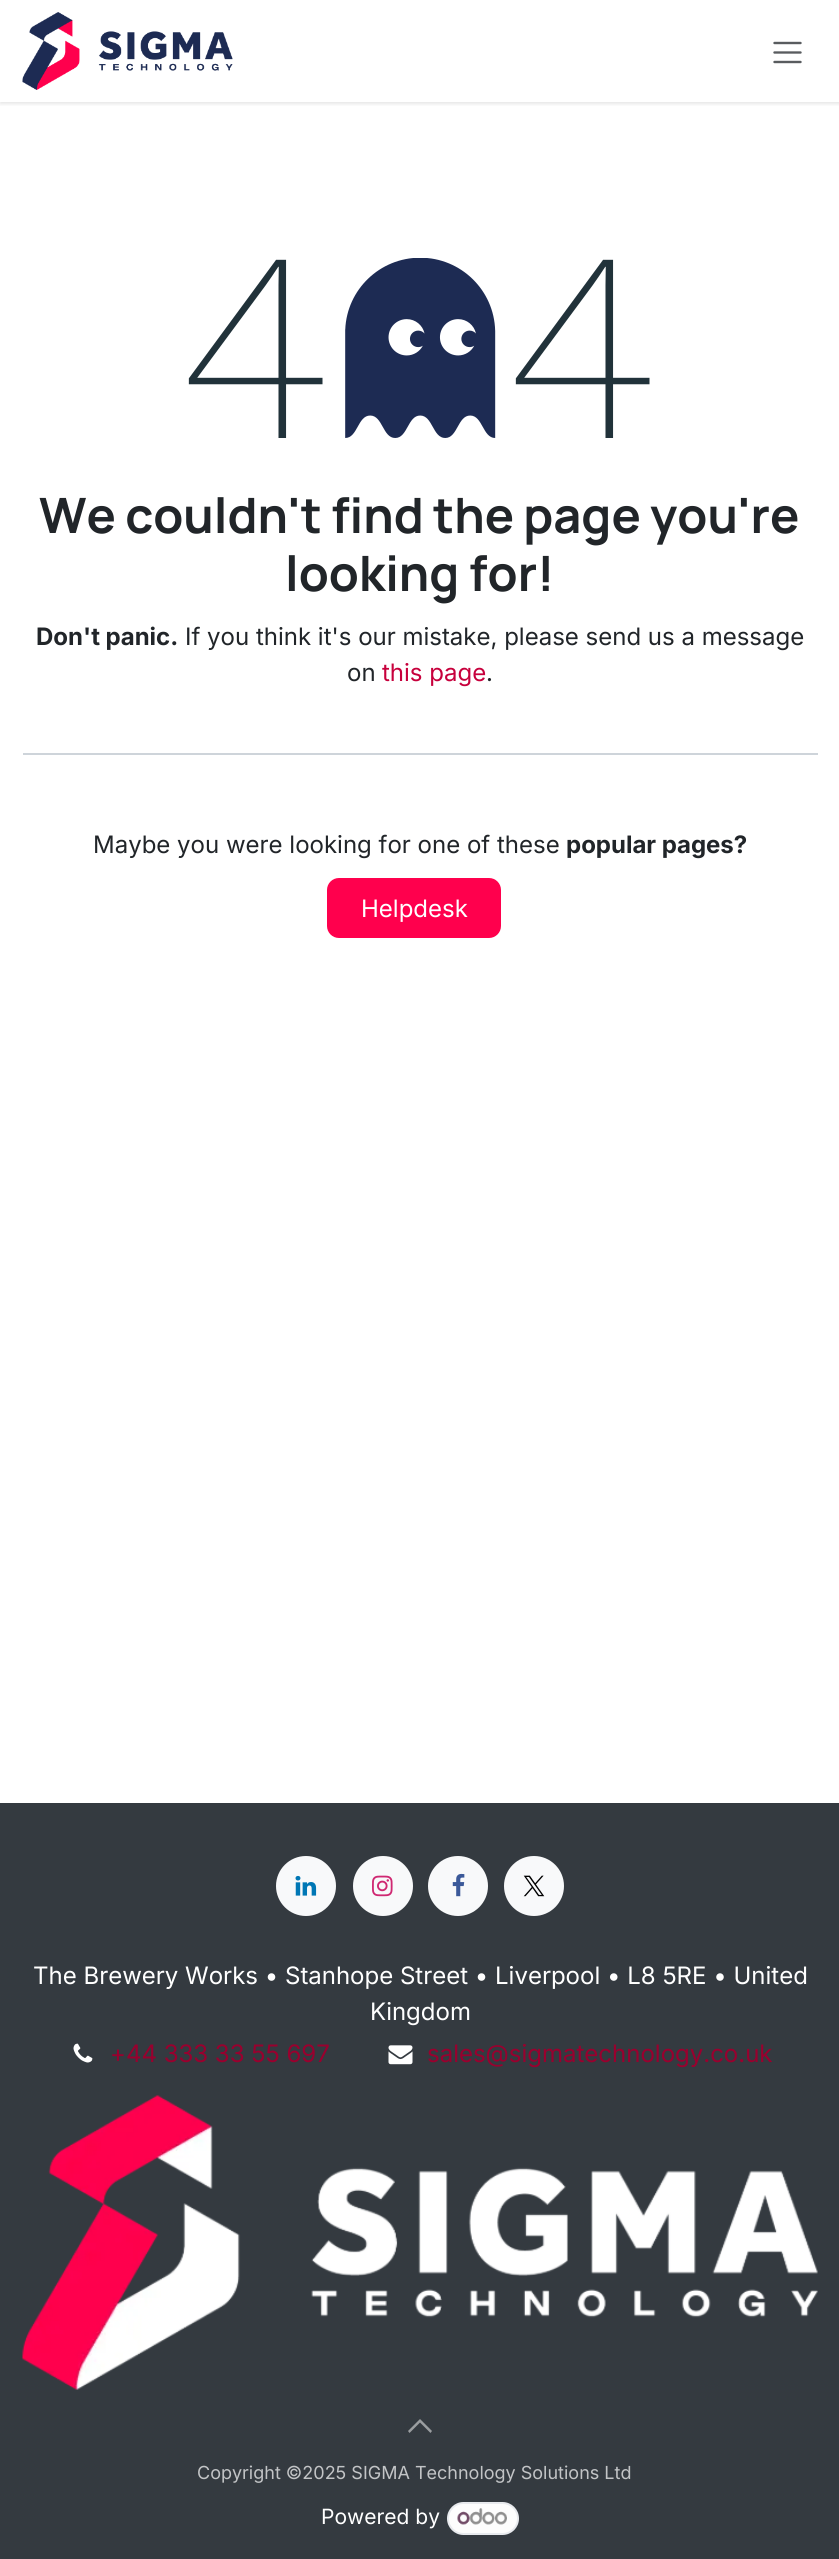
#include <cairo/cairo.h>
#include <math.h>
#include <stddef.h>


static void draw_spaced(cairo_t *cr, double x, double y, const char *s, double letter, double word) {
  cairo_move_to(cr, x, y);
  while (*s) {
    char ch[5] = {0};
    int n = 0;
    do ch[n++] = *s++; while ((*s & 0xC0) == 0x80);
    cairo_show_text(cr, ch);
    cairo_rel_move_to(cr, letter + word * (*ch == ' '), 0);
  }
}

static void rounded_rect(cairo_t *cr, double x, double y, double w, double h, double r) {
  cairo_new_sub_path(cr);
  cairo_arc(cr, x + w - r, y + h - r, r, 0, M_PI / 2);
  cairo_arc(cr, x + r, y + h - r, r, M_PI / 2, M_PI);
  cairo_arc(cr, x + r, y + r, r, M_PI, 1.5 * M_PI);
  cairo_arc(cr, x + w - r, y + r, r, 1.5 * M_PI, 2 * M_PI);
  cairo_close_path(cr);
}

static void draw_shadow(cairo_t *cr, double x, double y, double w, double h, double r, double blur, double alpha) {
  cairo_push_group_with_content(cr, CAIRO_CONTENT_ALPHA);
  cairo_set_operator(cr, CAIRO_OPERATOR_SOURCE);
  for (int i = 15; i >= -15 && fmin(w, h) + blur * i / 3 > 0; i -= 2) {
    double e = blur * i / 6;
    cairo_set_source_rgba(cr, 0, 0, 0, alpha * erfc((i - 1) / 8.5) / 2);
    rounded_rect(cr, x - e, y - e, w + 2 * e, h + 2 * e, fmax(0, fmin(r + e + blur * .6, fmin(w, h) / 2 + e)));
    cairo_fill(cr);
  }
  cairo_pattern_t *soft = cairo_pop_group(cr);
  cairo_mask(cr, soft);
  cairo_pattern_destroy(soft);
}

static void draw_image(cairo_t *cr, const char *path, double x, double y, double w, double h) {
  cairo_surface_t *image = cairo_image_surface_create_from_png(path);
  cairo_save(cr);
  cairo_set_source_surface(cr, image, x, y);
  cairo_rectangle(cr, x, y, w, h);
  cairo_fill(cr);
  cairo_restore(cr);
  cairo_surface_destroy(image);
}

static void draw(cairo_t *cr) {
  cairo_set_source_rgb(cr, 1, 1, 1);
  cairo_paint(cr);
  cairo_save(cr);
  cairo_rectangle(cr, 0, 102, 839, 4);
  cairo_clip(cr);
  cairo_set_source_rgb(cr, 0, 0, 0);
  draw_shadow(cr, 0, 2, 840, 102, 0, 2, 0.1);
  cairo_restore(cr);
  draw_image(cr, "images/1.png", 22, 12, 211, 78);
  cairo_new_path(cr);
  cairo_move_to(cr, 774.5, 43);
  cairo_line_to(cr, 800.5, 43);
  cairo_move_to(cr, 774.5, 52.5);
  cairo_line_to(cr, 800.5, 52.5);
  cairo_move_to(cr, 774.5, 62);
  cairo_line_to(cr, 800.5, 62);
  cairo_set_source_rgb(cr, 89 / 255.0, 92 / 255.0, 95 / 255.0);
  cairo_set_line_width(cr, 2.4);
  cairo_set_line_cap(cr, CAIRO_LINE_CAP_ROUND);
  cairo_stroke(cr);
  draw_image(cr, "images/2.png", 188, 258, 462, 180);
  cairo_set_source_rgb(cr, 206 / 255.0, 212 / 255.0, 218 / 255.0);
  cairo_rectangle(cr, 23, 753, 795, 2);
  cairo_fill(cr);
  cairo_set_source_rgb(cr, 1, 0, 77 / 255.0);
  rounded_rect(cr, 328, 879, 172, 58, 11);
  cairo_fill_preserve(cr);
  cairo_set_line_width(cr, 2);
  cairo_set_line_cap(cr, CAIRO_LINE_CAP_BUTT);
  cairo_stroke(cr);
  cairo_set_source_rgb(cr, 52 / 255.0, 58 / 255.0, 64 / 255.0);
  cairo_rectangle(cr, 0, 1803, 839, 756);
  cairo_fill(cr);
  cairo_set_source_rgb(cr, 248 / 255.0, 249 / 255.0, 250 / 255.0);
  cairo_arc(cr, 306, 1886, 30, 0, 2 * M_PI);
  cairo_fill(cr);
  draw_image(cr, "images/3.png", 295, 1875, 22, 21);
  cairo_arc(cr, 383, 1886, 30, 0, 2 * M_PI);
  cairo_fill(cr);
  draw_image(cr, "images/4.png", 372, 1875, 21, 22);
  cairo_arc(cr, 458, 1886, 30, 0, 2 * M_PI);
  cairo_fill(cr);
  draw_image(cr, "images/5.png", 452, 1873, 13, 24);
  cairo_arc(cr, 534, 1886, 30, 0, 2 * M_PI);
  cairo_fill(cr);
  draw_image(cr, "images/6.png", 523, 1875, 22, 22);
  draw_image(cr, "images/7.png", 73, 2043, 20, 20);
  draw_image(cr, "images/8.png", 388, 2045, 25, 20);
  draw_image(cr, "images/9.png", 22, 2095, 796, 295);
  cairo_set_source_rgb(cr, 154 / 255.0, 157 / 255.0, 160 / 255.0);
  cairo_new_path(cr);
  cairo_move_to(cr, 420, 2419);
  cairo_line_to(cr, 432, 2431);
  cairo_line_to(cr, 430.5, 2433);
  cairo_line_to(cr, 420, 2422.5);
  cairo_line_to(cr, 409.5, 2433);
  cairo_line_to(cr, 408, 2431);
  cairo_close_path(cr);
  cairo_fill(cr);
  cairo_set_source_rgb(cr, 253 / 255.0, 253 / 255.0, 253 / 255.0);
  rounded_rect(cr, 448, 2503, 70, 31, 15.5);
  cairo_fill_preserve(cr);
  cairo_set_source_rgb(cr, 232 / 255.0, 234 / 255.0, 238 / 255.0);
  cairo_stroke(cr);
  draw_image(cr, "images/10.png", 457, 2508, 50, 17);
  cairo_select_font_face(cr, "Manrope", CAIRO_FONT_SLANT_NORMAL, CAIRO_FONT_WEIGHT_BOLD);
  cairo_set_font_size(cr, 48.75);
  cairo_set_source_rgb(cr, 33 / 255.0, 37 / 255.0, 41 / 255.0);
  draw_spaced(cr, 39, 533, "We couldn't find the page you're", 0, -0.5);
  cairo_move_to(cr, 285, 591);
  cairo_show_text(cr, "looking for!");
  cairo_select_font_face(cr, "Inter", CAIRO_FONT_SLANT_NORMAL, CAIRO_FONT_WEIGHT_BOLD);
  cairo_set_font_size(cr, 24);
  cairo_move_to(cr, 36, 645);
  cairo_show_text(cr, "Don't panic.");
  cairo_select_font_face(cr, "Inter", CAIRO_FONT_SLANT_NORMAL, CAIRO_FONT_WEIGHT_NORMAL);
  cairo_move_to(cr, 185, 645);
  cairo_show_text(cr, "If you think it's our mistake, please send us a message");
  cairo_move_to(cr, 347, 681);
  cairo_show_text(cr, "on");
  cairo_set_source_rgb(cr, 199 / 255.0, 0, 60 / 255.0);
  cairo_move_to(cr, 382, 681);
  cairo_show_text(cr, "this page");
  cairo_set_source_rgb(cr, 33 / 255.0, 37 / 255.0, 41 / 255.0);
  cairo_move_to(cr, 486, 681);
  cairo_show_text(cr, ".");
  cairo_move_to(cr, 93, 853);
  cairo_show_text(cr, "Maybe you were looking for one of these");
  cairo_select_font_face(cr, "Inter", CAIRO_FONT_SLANT_NORMAL, CAIRO_FONT_WEIGHT_BOLD);
  cairo_move_to(cr, 566, 853);
  cairo_show_text(cr, "popular pages?");
  cairo_select_font_face(cr, "Inter", CAIRO_FONT_SLANT_NORMAL, CAIRO_FONT_WEIGHT_NORMAL);
  cairo_set_source_rgb(cr, 1, 1, 1);
  cairo_move_to(cr, 361, 917);
  cairo_show_text(cr, "Helpdesk");
  cairo_move_to(cr, 33, 1984);
  cairo_show_text(cr, "The Brewery Works • Stanhope Street • Liverpool • L8 5RE • United");
  cairo_move_to(cr, 370, 2020);
  cairo_show_text(cr, "Kingdom");
  cairo_set_source_rgb(cr, 153 / 255.0, 0, 46 / 255.0);
  cairo_move_to(cr, 110, 2062);
  cairo_show_text(cr, "+44 333 33 55 697");
  cairo_move_to(cr, 427, 2062);
  cairo_show_text(cr, "sales@sigmatechnology.co.uk");
  cairo_set_font_size(cr, 18);
  cairo_set_source_rgb(cr, 194 / 255.0, 196 / 255.0, 198 / 255.0);
  cairo_move_to(cr, 197, 2479);
  cairo_show_text(cr, "Copyright ©2025 SIGMA Technology Solutions Ltd");
  cairo_set_font_size(cr, 21);
  cairo_set_source_rgb(cr, 1, 1, 1);
  cairo_move_to(cr, 321, 2524);
  cairo_show_text(cr, "Powered by");
}

int main(void) {
  cairo_surface_t *surface = cairo_image_surface_create(CAIRO_FORMAT_RGB24, 839, 2559);
  cairo_t *cr = cairo_create(surface);
  cairo_font_options_t *options = cairo_font_options_create();
  cairo_font_options_set_hint_metrics(options, CAIRO_HINT_METRICS_OFF);
  cairo_font_options_set_hint_style(options, CAIRO_HINT_STYLE_NONE);
  cairo_set_font_options(cr, options);
  cairo_set_miter_limit(cr, 4);
  draw(cr);
  cairo_surface_write_to_png(surface, "out.png");
  cairo_font_options_destroy(options);
  cairo_destroy(cr);
  cairo_surface_destroy(surface);
  return 0;
}
